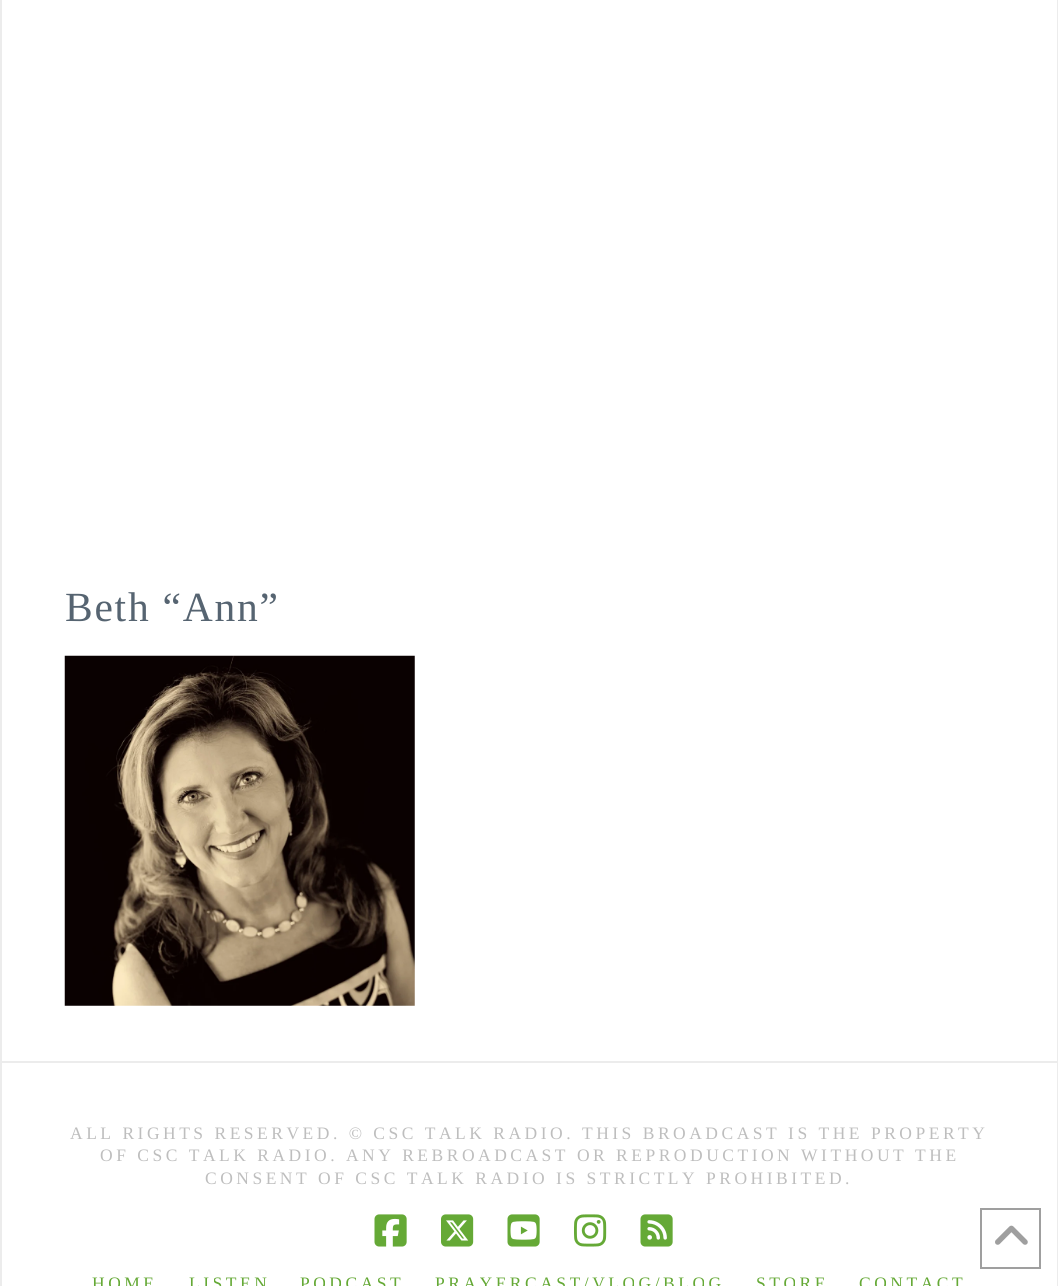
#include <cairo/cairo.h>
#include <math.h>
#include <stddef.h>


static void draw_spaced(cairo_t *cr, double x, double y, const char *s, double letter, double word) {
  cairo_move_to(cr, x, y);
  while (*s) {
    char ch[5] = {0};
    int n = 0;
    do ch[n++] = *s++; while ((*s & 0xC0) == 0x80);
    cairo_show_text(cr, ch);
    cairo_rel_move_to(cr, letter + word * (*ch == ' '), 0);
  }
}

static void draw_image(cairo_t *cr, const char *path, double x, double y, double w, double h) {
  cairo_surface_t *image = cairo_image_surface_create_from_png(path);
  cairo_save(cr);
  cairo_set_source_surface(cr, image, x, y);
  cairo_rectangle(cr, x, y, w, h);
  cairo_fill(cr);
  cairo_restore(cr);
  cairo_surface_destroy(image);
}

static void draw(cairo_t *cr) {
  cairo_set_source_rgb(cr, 1, 1, 1);
  cairo_paint(cr);
  cairo_set_source_rgb(cr, 236 / 255.0, 236 / 255.0, 236 / 255.0);
  cairo_rectangle(cr, 1057, 0, 1, 1286);
  cairo_fill(cr);
  cairo_rectangle(cr, 0, 0, 2, 1286);
  cairo_fill(cr);
  draw_image(cr, "images/1.png", 64, 655, 351, 351);
  cairo_rectangle(cr, 2, 1061, 1055, 2);
  cairo_fill(cr);
  draw_image(cr, "images/2.png", 374, 1214, 33, 33);
  draw_image(cr, "images/3.png", 441, 1214, 33, 33);
  draw_image(cr, "images/4.png", 507, 1214, 33, 33);
  draw_image(cr, "images/5.png", 574, 1214, 33, 33);
  draw_image(cr, "images/6.png", 640, 1214, 33, 33);
  cairo_rectangle(cr, 981, 1209, 59, 59);
  cairo_set_source_rgb(cr, 159 / 255.0, 159 / 255.0, 159 / 255.0);
  cairo_stroke(cr);
  draw_image(cr, "images/7.png", 995, 1225, 33, 20);
  cairo_select_font_face(cr, "Liberation Serif", CAIRO_FONT_SLANT_NORMAL, CAIRO_FONT_WEIGHT_NORMAL);
  cairo_set_font_size(cr, 41.5);
  cairo_set_source_rgb(cr, 86 / 255.0, 100 / 255.0, 113 / 255.0);
  draw_spaced(cr, 65, 621, "Beth “Ann”", 1.75, 0);
  cairo_set_font_size(cr, 17.5);
  cairo_set_source_rgb(cr, 190 / 255.0, 190 / 255.0, 190 / 255.0);
  draw_spaced(cr, 70, 1139, "ALL RIGHTS RESERVED. © CSC TALK RADIO. THIS BROADCAST IS THE PROPERTY", 3.5, 0);
  draw_spaced(cr, 100, 1161, "OF CSC TALK RADIO. ANY REBROADCAST OR REPRODUCTION WITHOUT THE", 3.5, 0);
  draw_spaced(cr, 205, 1184, "CONSENT OF CSC TALK RADIO IS STRICTLY PROHIBITED.", 3.5, 0);
  cairo_set_source_rgb(cr, 101 / 255.0, 169 / 255.0, 54 / 255.0);
  draw_spaced(cr, 92, 1289, "HOME", 3.5, 0);
  draw_spaced(cr, 189, 1289, "LISTEN", 3.5, 0);
  draw_spaced(cr, 300, 1289, "PODCAST", 3.5, 0);
  draw_spaced(cr, 435, 1289, "PRAYERCAST/VLOG/BLOG", 3.5, 0);
  draw_spaced(cr, 756, 1289, "STORE", 3.5, 0);
  draw_spaced(cr, 859, 1289, "CONTACT", 3.5, 0);
}

int main(void) {
  cairo_surface_t *surface = cairo_image_surface_create(CAIRO_FORMAT_RGB24, 1058, 1286);
  cairo_t *cr = cairo_create(surface);
  cairo_font_options_t *options = cairo_font_options_create();
  cairo_font_options_set_hint_metrics(options, CAIRO_HINT_METRICS_OFF);
  cairo_font_options_set_hint_style(options, CAIRO_HINT_STYLE_NONE);
  cairo_set_font_options(cr, options);
  cairo_set_miter_limit(cr, 4);
  draw(cr);
  cairo_surface_write_to_png(surface, "out.png");
  cairo_font_options_destroy(options);
  cairo_destroy(cr);
  cairo_surface_destroy(surface);
  return 0;
}
